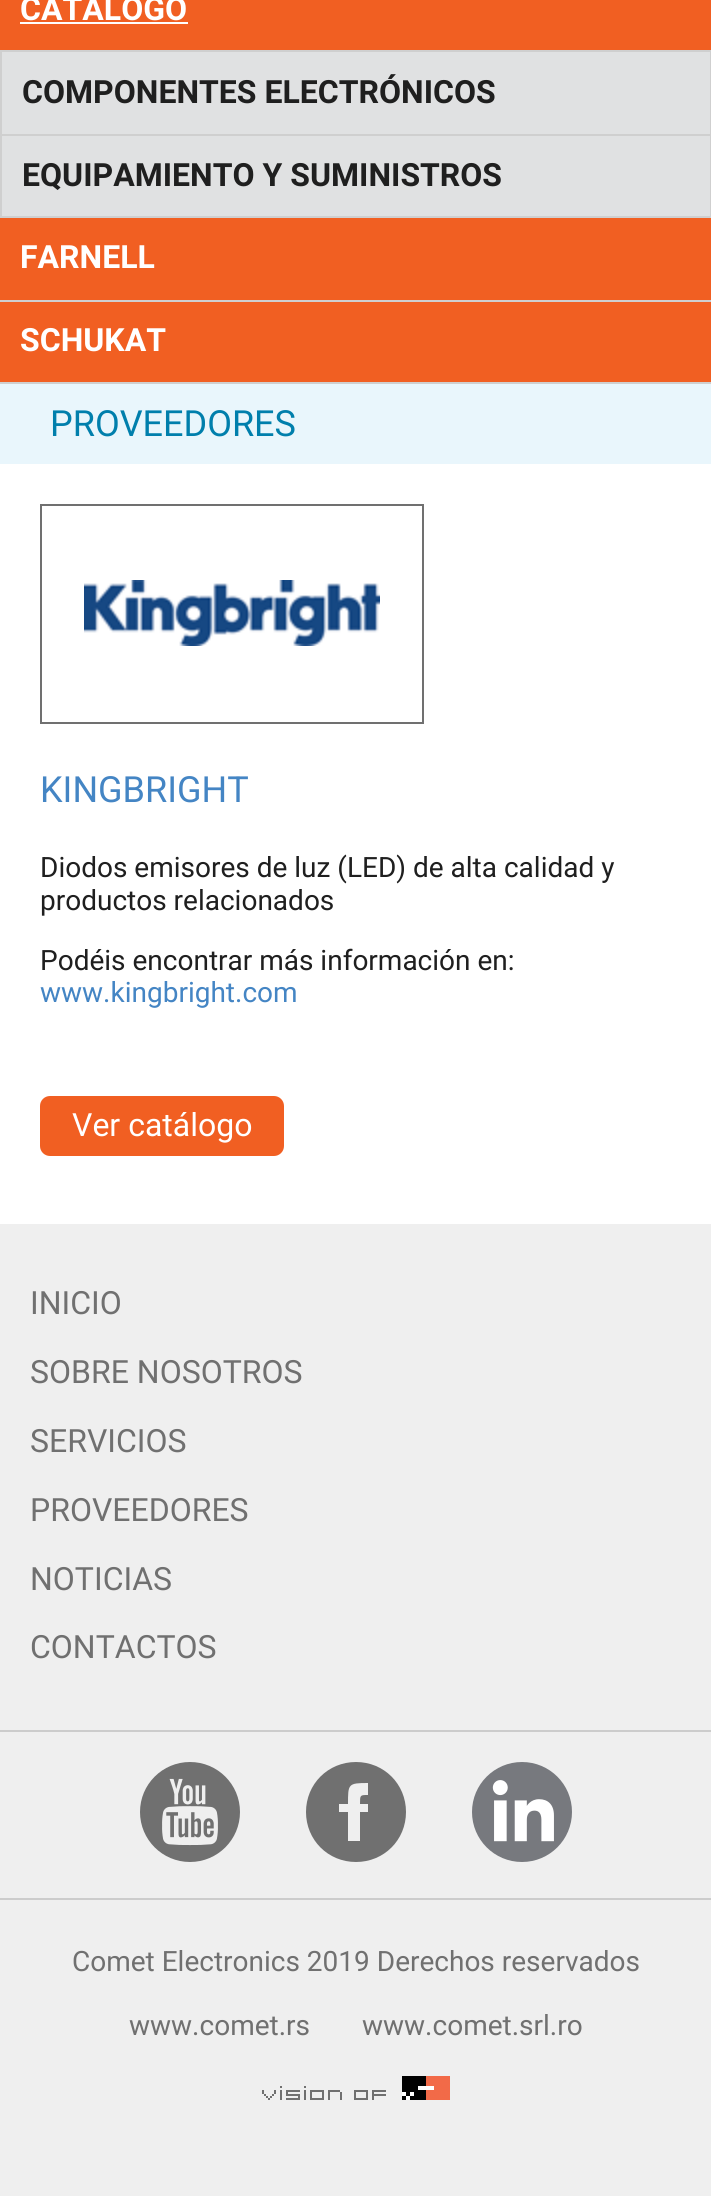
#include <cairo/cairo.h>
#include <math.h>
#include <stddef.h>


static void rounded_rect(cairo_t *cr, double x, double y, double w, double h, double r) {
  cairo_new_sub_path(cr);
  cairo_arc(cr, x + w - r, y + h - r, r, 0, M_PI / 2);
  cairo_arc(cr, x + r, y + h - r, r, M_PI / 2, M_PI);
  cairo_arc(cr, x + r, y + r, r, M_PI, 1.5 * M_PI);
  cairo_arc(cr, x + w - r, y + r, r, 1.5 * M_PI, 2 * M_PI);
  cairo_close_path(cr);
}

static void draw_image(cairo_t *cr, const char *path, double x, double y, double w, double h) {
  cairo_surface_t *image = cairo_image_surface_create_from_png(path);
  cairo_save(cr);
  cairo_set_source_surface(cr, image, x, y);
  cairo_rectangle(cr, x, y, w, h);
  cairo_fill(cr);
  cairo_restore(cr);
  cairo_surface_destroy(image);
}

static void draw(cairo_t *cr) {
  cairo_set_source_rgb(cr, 1, 1, 1);
  cairo_paint(cr);
  cairo_set_source_rgb(cr, 207 / 255.0, 207 / 255.0, 207 / 255.0);
  cairo_rectangle(cr, 710, 52, 1, 166);
  cairo_fill(cr);
  cairo_rectangle(cr, 0, 52, 2, 166);
  cairo_fill(cr);
  cairo_set_source_rgb(cr, 241 / 255.0, 95 / 255.0, 34 / 255.0);
  cairo_rectangle(cr, 0, 0, 711, 50);
  cairo_fill(cr);
  cairo_set_source_rgb(cr, 207 / 255.0, 207 / 255.0, 207 / 255.0);
  cairo_rectangle(cr, 0, 50, 711, 2);
  cairo_fill(cr);
  cairo_set_source_rgb(cr, 1, 1, 1);
  cairo_rectangle(cr, 20, 22, 168, 2);
  cairo_fill(cr);
  cairo_set_source_rgb(cr, 224 / 255.0, 225 / 255.0, 226 / 255.0);
  cairo_rectangle(cr, 2, 52, 708, 82);
  cairo_fill(cr);
  cairo_set_source_rgb(cr, 207 / 255.0, 207 / 255.0, 207 / 255.0);
  cairo_rectangle(cr, 2, 134, 708, 2);
  cairo_fill(cr);
  cairo_set_source_rgb(cr, 224 / 255.0, 225 / 255.0, 226 / 255.0);
  cairo_rectangle(cr, 2, 136, 708, 80);
  cairo_fill(cr);
  cairo_set_source_rgb(cr, 207 / 255.0, 207 / 255.0, 207 / 255.0);
  cairo_rectangle(cr, 2, 216, 708, 2);
  cairo_fill(cr);
  cairo_set_source_rgb(cr, 241 / 255.0, 95 / 255.0, 34 / 255.0);
  cairo_rectangle(cr, 0, 218, 711, 82);
  cairo_fill(cr);
  cairo_set_source_rgb(cr, 207 / 255.0, 207 / 255.0, 207 / 255.0);
  cairo_rectangle(cr, 0, 300, 711, 2);
  cairo_fill(cr);
  cairo_set_source_rgb(cr, 241 / 255.0, 95 / 255.0, 34 / 255.0);
  cairo_rectangle(cr, 0, 302, 711, 80);
  cairo_fill(cr);
  cairo_set_source_rgb(cr, 207 / 255.0, 207 / 255.0, 207 / 255.0);
  cairo_rectangle(cr, 0, 382, 711, 2);
  cairo_fill(cr);
  cairo_set_source_rgb(cr, 233 / 255.0, 246 / 255.0, 252 / 255.0);
  cairo_rectangle(cr, 0, 384, 711, 80);
  cairo_fill(cr);
  cairo_rectangle(cr, 41, 505, 382, 218);
  cairo_set_source_rgb(cr, 112 / 255.0, 112 / 255.0, 112 / 255.0);
  cairo_stroke(cr);
  draw_image(cr, "images/1.png", 84, 580, 296, 66);
  cairo_set_source_rgb(cr, 241 / 255.0, 95 / 255.0, 34 / 255.0);
  rounded_rect(cr, 40, 1096, 244, 60, 10);
  cairo_fill(cr);
  cairo_set_source_rgb(cr, 239 / 255.0, 239 / 255.0, 239 / 255.0);
  cairo_rectangle(cr, 0, 1224, 711, 972);
  cairo_fill(cr);
  cairo_set_source_rgb(cr, 204 / 255.0, 204 / 255.0, 204 / 255.0);
  cairo_rectangle(cr, 0, 1898, 711, 2);
  cairo_fill(cr);
  cairo_rectangle(cr, 0, 1730, 711, 2);
  cairo_fill(cr);
  draw_image(cr, "images/2.png", 140, 1762, 100, 100);
  cairo_set_source_rgb(cr, 112 / 255.0, 112 / 255.0, 112 / 255.0);
  cairo_new_path(cr);
  cairo_move_to(cr, 356, 1762);
  cairo_curve_to(cr, 328, 1762, 306, 1784, 306, 1812);
  cairo_curve_to(cr, 306, 1840, 328, 1862, 356, 1862);
  cairo_curve_to(cr, 384, 1862, 406, 1840, 406, 1812);
  cairo_curve_to(cr, 406, 1784, 384, 1762, 356, 1762);
  cairo_close_path(cr);
  cairo_move_to(cr, 368, 1795);
  cairo_curve_to(cr, 360, 1795, 360, 1795, 360, 1804);
  cairo_line_to(cr, 368, 1804);
  cairo_line_to(cr, 368, 1812);
  cairo_line_to(cr, 360, 1812);
  cairo_line_to(cr, 360, 1841);
  cairo_line_to(cr, 348, 1841);
  cairo_line_to(cr, 348, 1812);
  cairo_line_to(cr, 339, 1812);
  cairo_line_to(cr, 339, 1804);
  cairo_line_to(cr, 348, 1804);
  cairo_curve_to(cr, 348, 1784, 348, 1783, 368, 1783);
  cairo_close_path(cr);
  cairo_fill(cr);
  draw_image(cr, "images/3.png", 472, 1762, 100, 100);
  draw_image(cr, "images/4.png", 262, 2076, 188, 24);
  cairo_select_font_face(cr, "Roboto", CAIRO_FONT_SLANT_NORMAL, CAIRO_FONT_WEIGHT_BOLD);
  cairo_set_font_size(cr, 32);
  cairo_set_source_rgb(cr, 1, 1, 1);
  cairo_move_to(cr, 20, 20);
  cairo_show_text(cr, "CATÁLOGO");
  cairo_set_source_rgb(cr, 31 / 255.0, 31 / 255.0, 31 / 255.0);
  cairo_move_to(cr, 22, 103);
  cairo_show_text(cr, "COMPONENTES ELECTRÓNICOS");
  cairo_move_to(cr, 22, 186);
  cairo_show_text(cr, "EQUIPAMIENTO Y SUMINISTROS");
  cairo_set_source_rgb(cr, 1, 1, 1);
  cairo_move_to(cr, 20, 268);
  cairo_show_text(cr, "FARNELL");
  cairo_move_to(cr, 20, 351);
  cairo_show_text(cr, "SCHUKAT");
  cairo_select_font_face(cr, "Roboto", CAIRO_FONT_SLANT_NORMAL, CAIRO_FONT_WEIGHT_NORMAL);
  cairo_set_font_size(cr, 36);
  cairo_set_source_rgb(cr, 0, 127 / 255.0, 172 / 255.0);
  cairo_move_to(cr, 50, 436);
  cairo_show_text(cr, "PROVEEDORES");
  cairo_set_source_rgb(cr, 68 / 255.0, 133 / 255.0, 196 / 255.0);
  cairo_move_to(cr, 40, 802);
  cairo_show_text(cr, "KINGBRIGHT");
  cairo_set_font_size(cr, 28);
  cairo_set_source_rgb(cr, 31 / 255.0, 31 / 255.0, 31 / 255.0);
  cairo_move_to(cr, 40, 877);
  cairo_show_text(cr, "Diodos emisores de luz (LED) de alta calidad y");
  cairo_move_to(cr, 40, 910);
  cairo_show_text(cr, "productos relacionados");
  cairo_move_to(cr, 40, 970);
  cairo_show_text(cr, "Podéis encontrar más información en:");
  cairo_set_source_rgb(cr, 68 / 255.0, 133 / 255.0, 196 / 255.0);
  cairo_move_to(cr, 40, 1002);
  cairo_show_text(cr, "www.kingbright.com");
  cairo_set_font_size(cr, 32);
  cairo_set_source_rgb(cr, 1, 1, 1);
  cairo_move_to(cr, 72, 1136);
  cairo_show_text(cr, "Ver catálogo");
  cairo_set_source_rgb(cr, 112 / 255.0, 112 / 255.0, 112 / 255.0);
  cairo_move_to(cr, 30, 1314);
  cairo_show_text(cr, "INICIO");
  cairo_move_to(cr, 30, 1383);
  cairo_show_text(cr, "SOBRE NOSOTROS");
  cairo_move_to(cr, 30, 1452);
  cairo_show_text(cr, "SERVICIOS");
  cairo_move_to(cr, 30, 1521);
  cairo_show_text(cr, "PROVEEDORES");
  cairo_move_to(cr, 30, 1590);
  cairo_show_text(cr, "NOTICIAS");
  cairo_move_to(cr, 30, 1658);
  cairo_show_text(cr, "CONTACTOS");
  cairo_set_font_size(cr, 28);
  cairo_move_to(cr, 72, 1971);
  cairo_show_text(cr, "Comet Electronics 2019 Derechos reservados");
  cairo_move_to(cr, 129, 2035);
  cairo_show_text(cr, "www.comet.rs");
  cairo_move_to(cr, 362, 2035);
  cairo_show_text(cr, "www.comet.srl.ro");
}

int main(void) {
  cairo_surface_t *surface = cairo_image_surface_create(CAIRO_FORMAT_RGB24, 711, 2196);
  cairo_t *cr = cairo_create(surface);
  cairo_font_options_t *options = cairo_font_options_create();
  cairo_font_options_set_hint_metrics(options, CAIRO_HINT_METRICS_OFF);
  cairo_font_options_set_hint_style(options, CAIRO_HINT_STYLE_NONE);
  cairo_set_font_options(cr, options);
  cairo_set_miter_limit(cr, 4);
  draw(cr);
  cairo_surface_write_to_png(surface, "out.png");
  cairo_font_options_destroy(options);
  cairo_destroy(cr);
  cairo_surface_destroy(surface);
  return 0;
}
